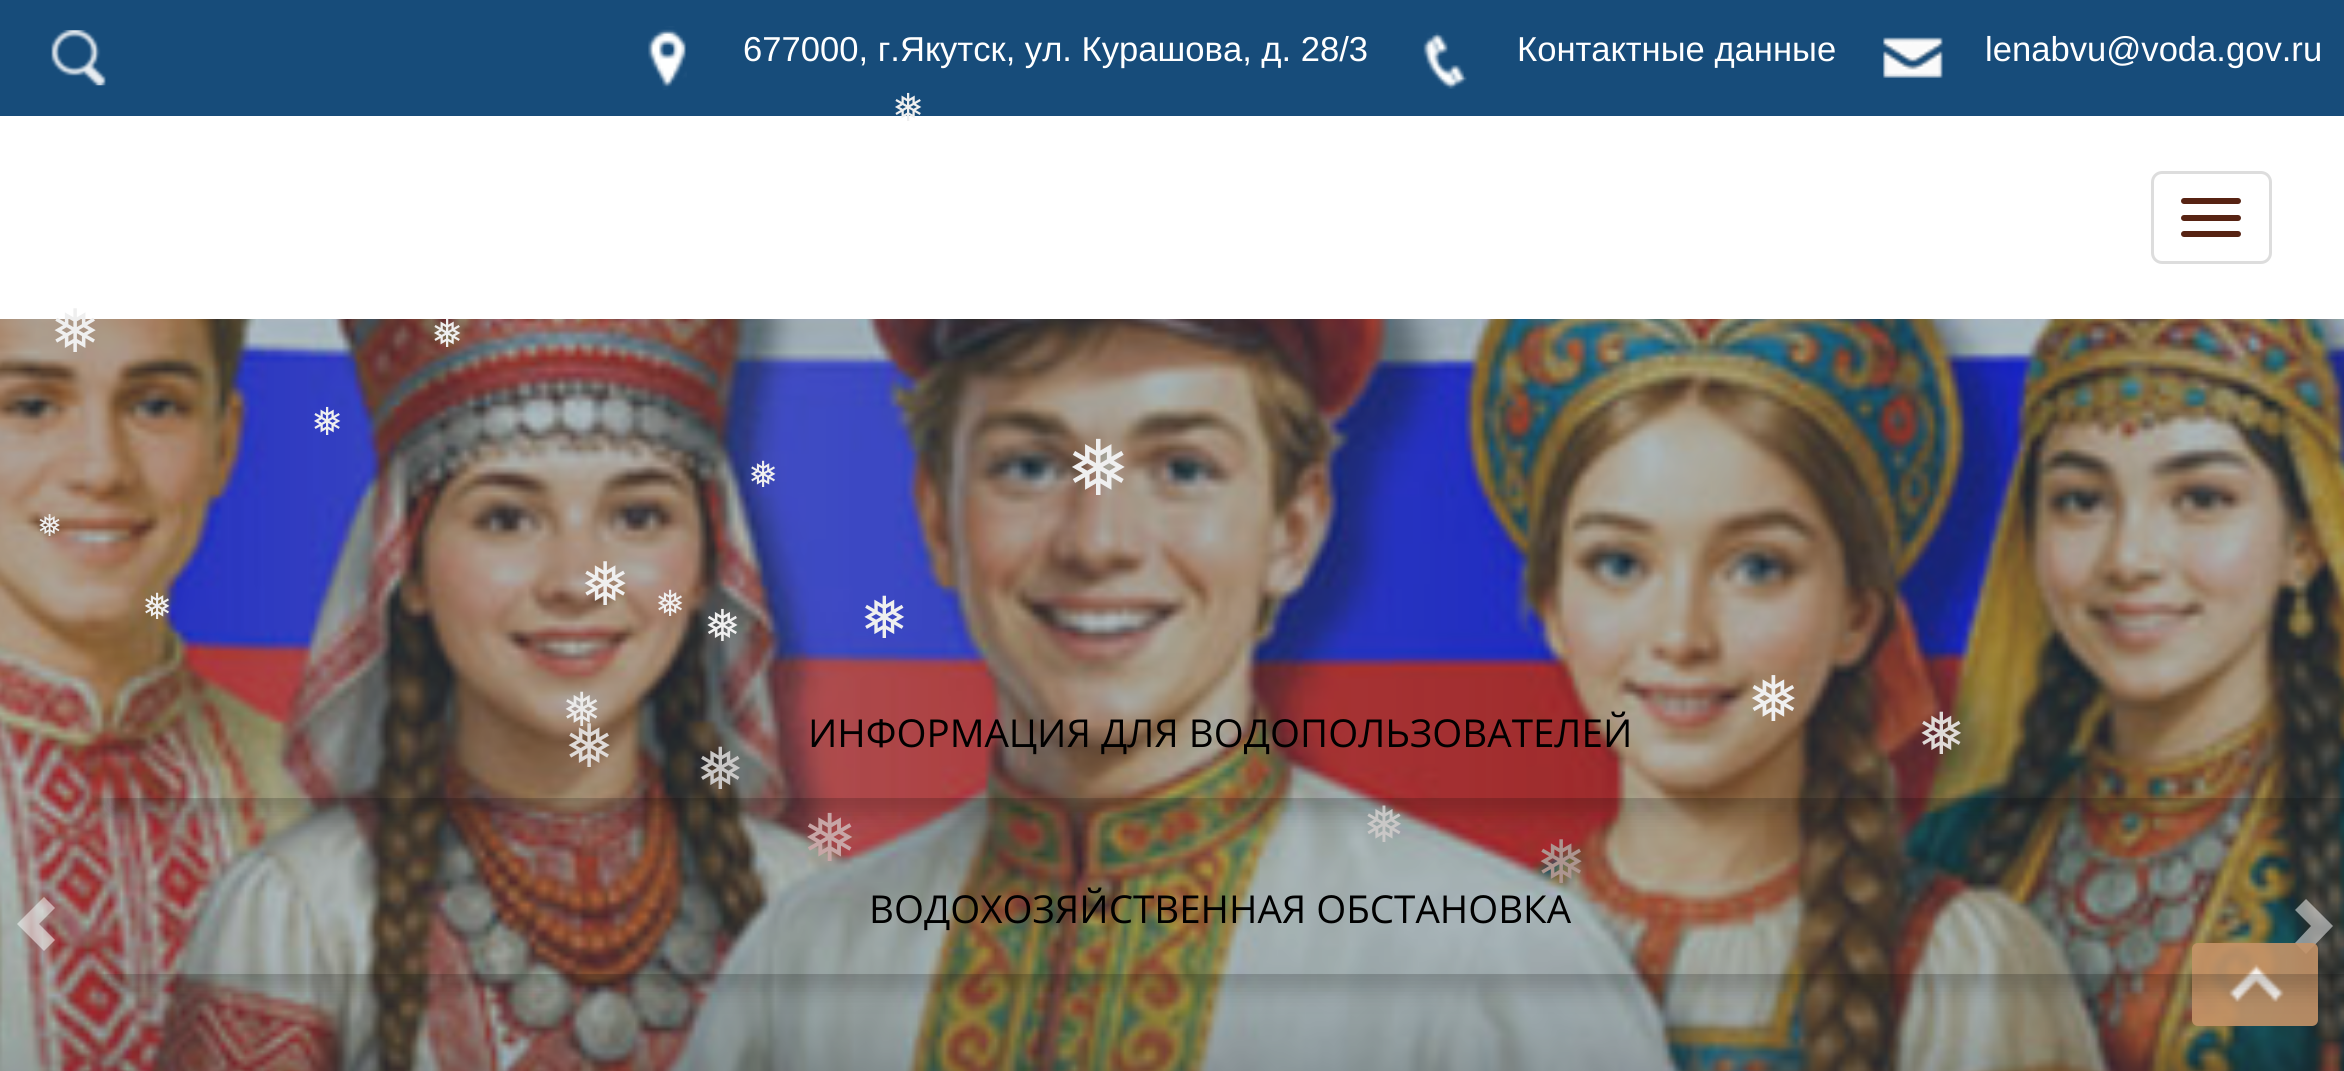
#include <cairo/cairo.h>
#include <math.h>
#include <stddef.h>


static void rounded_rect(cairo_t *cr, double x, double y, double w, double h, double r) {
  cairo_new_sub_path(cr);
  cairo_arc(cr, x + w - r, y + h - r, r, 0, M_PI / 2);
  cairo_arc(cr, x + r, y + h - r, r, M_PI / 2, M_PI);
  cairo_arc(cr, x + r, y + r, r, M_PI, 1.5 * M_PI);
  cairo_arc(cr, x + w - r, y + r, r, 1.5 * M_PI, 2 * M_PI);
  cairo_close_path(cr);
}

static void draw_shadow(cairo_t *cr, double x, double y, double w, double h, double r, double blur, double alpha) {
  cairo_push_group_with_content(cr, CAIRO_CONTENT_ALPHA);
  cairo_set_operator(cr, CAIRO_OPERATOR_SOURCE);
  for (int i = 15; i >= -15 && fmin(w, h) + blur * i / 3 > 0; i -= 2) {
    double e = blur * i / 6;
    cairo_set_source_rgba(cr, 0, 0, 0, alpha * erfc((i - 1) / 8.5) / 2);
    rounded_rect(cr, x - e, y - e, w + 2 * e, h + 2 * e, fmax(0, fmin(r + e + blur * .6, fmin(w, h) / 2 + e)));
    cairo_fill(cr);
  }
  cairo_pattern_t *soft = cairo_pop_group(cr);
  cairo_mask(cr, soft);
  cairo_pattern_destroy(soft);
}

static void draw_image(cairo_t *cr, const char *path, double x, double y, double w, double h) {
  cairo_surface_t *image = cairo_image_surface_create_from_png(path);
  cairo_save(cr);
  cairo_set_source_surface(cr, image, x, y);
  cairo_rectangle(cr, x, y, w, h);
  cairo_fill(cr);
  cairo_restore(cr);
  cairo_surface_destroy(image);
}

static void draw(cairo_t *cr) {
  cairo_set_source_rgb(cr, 52 / 255.0, 87 / 255.0, 108 / 255.0);
  cairo_paint(cr);
  cairo_set_source_rgb(cr, 23 / 255.0, 76 / 255.0, 122 / 255.0);
  cairo_rectangle(cr, 0, 0, 2344, 116);
  cairo_fill(cr);
  draw_image(cr, "images/1.png", 51, 30, 55, 56);
  draw_image(cr, "images/6.png", 0, 319, 2344, 752);
  cairo_set_source_rgba(cr, 1, 1, 1, 0.5);
  cairo_new_path(cr);
  cairo_move_to(cr, 2295, 943);
  cairo_line_to(cr, 2311, 926);
  cairo_line_to(cr, 2295, 910);
  cairo_line_to(cr, 2306, 899);
  cairo_line_to(cr, 2333, 926);
  cairo_line_to(cr, 2306, 954);
  cairo_close_path(cr);
  cairo_fill(cr);
  cairo_set_source_rgba(cr, 197 / 255.0, 147 / 255.0, 104 / 255.0, 0.9);
  rounded_rect(cr, 2192, 943, 126, 83, 6);
  cairo_fill(cr);
  draw_image(cr, "images/2.png", 2229, 964, 55, 38);
  draw_image(cr, "images/3.png", 648, 26, 39, 64);
  draw_image(cr, "images/4.png", 1423, 32, 44, 57);
  draw_image(cr, "images/5.png", 1883, 37, 60, 41);
  cairo_set_source_rgb(cr, 1, 1, 1);
  cairo_rectangle(cr, 0, 116, 2344, 203);
  cairo_fill(cr);
  rounded_rect(cr, 2152.5, 172.5, 118, 90, 9.5);
  cairo_set_source_rgb(cr, 221 / 255.0, 221 / 255.0, 221 / 255.0);
  cairo_set_line_width(cr, 3);
  cairo_stroke(cr);
  cairo_set_source_rgb(cr, 87 / 255.0, 35 / 255.0, 19 / 255.0);
  rounded_rect(cr, 2181, 198, 60, 6, 3);
  cairo_fill(cr);
  rounded_rect(cr, 2181, 215, 60, 6, 3);
  cairo_fill(cr);
  rounded_rect(cr, 2181, 231, 60, 6, 3);
  cairo_fill(cr);
  cairo_set_source_rgba(cr, 1, 1, 1, 0.5);
  cairo_new_path(cr);
  cairo_move_to(cr, 17, 924);
  cairo_line_to(cr, 44, 951);
  cairo_line_to(cr, 55, 940);
  cairo_line_to(cr, 39, 924);
  cairo_line_to(cr, 55, 908);
  cairo_line_to(cr, 44, 897);
  cairo_close_path(cr);
  cairo_fill(cr);
  cairo_save(cr);
  cairo_set_fill_rule(cr, CAIRO_FILL_RULE_EVEN_ODD);
  cairo_new_path(cr);
  cairo_move_to(cr, 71, 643);
  cairo_line_to(cr, 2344, 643);
  cairo_line_to(cr, 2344, 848);
  cairo_line_to(cr, 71, 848);
  cairo_close_path(cr);
  cairo_move_to(cr, 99, 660);
  cairo_line_to(cr, 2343, 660);
  cairo_curve_to(cr, 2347.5, 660, 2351, 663.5, 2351, 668);
  cairo_line_to(cr, 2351, 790);
  cairo_curve_to(cr, 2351, 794.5, 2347.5, 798, 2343, 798);
  cairo_line_to(cr, 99, 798);
  cairo_curve_to(cr, 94.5, 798, 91, 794.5, 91, 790);
  cairo_line_to(cr, 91, 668);
  cairo_curve_to(cr, 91, 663.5, 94.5, 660, 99, 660);
  cairo_close_path(cr);
  cairo_clip(cr);
  cairo_set_source_rgb(cr, 0, 0, 0);
  draw_shadow(cr, 105, 677, 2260, 137, 8, 11, 0.2);
  cairo_restore(cr);
  cairo_save(cr);
  cairo_set_fill_rule(cr, CAIRO_FILL_RULE_EVEN_ODD);
  cairo_new_path(cr);
  cairo_move_to(cr, 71, 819);
  cairo_line_to(cr, 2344, 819);
  cairo_line_to(cr, 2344, 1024);
  cairo_line_to(cr, 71, 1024);
  cairo_close_path(cr);
  cairo_move_to(cr, 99, 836);
  cairo_line_to(cr, 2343, 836);
  cairo_curve_to(cr, 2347.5, 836, 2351, 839.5, 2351, 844);
  cairo_line_to(cr, 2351, 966);
  cairo_curve_to(cr, 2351, 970.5, 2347.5, 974, 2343, 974);
  cairo_line_to(cr, 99, 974);
  cairo_curve_to(cr, 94.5, 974, 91, 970.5, 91, 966);
  cairo_line_to(cr, 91, 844);
  cairo_curve_to(cr, 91, 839.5, 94.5, 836, 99, 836);
  cairo_close_path(cr);
  cairo_clip(cr);
  cairo_set_source_rgb(cr, 0, 0, 0);
  draw_shadow(cr, 105, 853, 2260, 137, 8, 11, 0.2);
  cairo_restore(cr);
  cairo_select_font_face(cr, "Liberation Sans", CAIRO_FONT_SLANT_NORMAL, CAIRO_FONT_WEIGHT_NORMAL);
  cairo_set_font_size(cr, 34.6);
  cairo_set_source_rgb(cr, 1, 1, 1);
  cairo_move_to(cr, 743, 61);
  cairo_show_text(cr, "677000, г.Якутск, ул. Курашова, д. 28/3");
  cairo_move_to(cr, 1517, 61);
  cairo_show_text(cr, "Контактные данные");
  cairo_move_to(cr, 1985, 61);
  cairo_show_text(cr, "lenabvu@voda.gov.ru");
  cairo_select_font_face(cr, "DejaVu Sans", CAIRO_FONT_SLANT_NORMAL, CAIRO_FONT_WEIGHT_NORMAL);
  cairo_set_font_size(cr, 38.5);
  cairo_set_source_rgb(cr, 239 / 255.0, 239 / 255.0, 239 / 255.0);
  cairo_move_to(cr, 892, 121);
  cairo_show_text(cr, "❅");
  cairo_set_font_size(cr, 60);
  cairo_move_to(cr, 50, 352);
  cairo_show_text(cr, "❅");
  cairo_set_font_size(cr, 38.5);
  cairo_move_to(cr, 431, 347);
  cairo_show_text(cr, "❅");
  cairo_move_to(cr, 311, 435);
  cairo_show_text(cr, "❅");
  cairo_set_font_size(cr, 36);
  cairo_move_to(cr, 748, 487);
  cairo_show_text(cr, "❅");
  cairo_set_font_size(cr, 77);
  cairo_move_to(cr, 1066, 495);
  cairo_show_text(cr, "❅");
  cairo_set_font_size(cr, 30);
  cairo_move_to(cr, 37, 536);
  cairo_show_text(cr, "❅");
  cairo_set_font_size(cr, 36);
  cairo_move_to(cr, 142, 619);
  cairo_show_text(cr, "❅");
  cairo_set_font_size(cr, 60);
  cairo_move_to(cr, 580, 605);
  cairo_show_text(cr, "❅");
  cairo_set_font_size(cr, 36);
  cairo_move_to(cr, 655, 616);
  cairo_show_text(cr, "❅");
  cairo_set_font_size(cr, 44);
  cairo_move_to(cr, 704, 641);
  cairo_show_text(cr, "❅");
  cairo_set_font_size(cr, 58);
  cairo_move_to(cr, 860, 638);
  cairo_show_text(cr, "❅");
  cairo_set_font_size(cr, 47);
  cairo_set_source_rgb(cr, 235 / 255.0, 234 / 255.0, 233 / 255.0);
  cairo_move_to(cr, 562, 726);
  cairo_show_text(cr, "❅");
  cairo_set_font_size(cr, 63);
  cairo_set_source_rgb(cr, 239 / 255.0, 239 / 255.0, 239 / 255.0);
  cairo_move_to(cr, 1747, 721);
  cairo_show_text(cr, "❅");
  cairo_set_font_size(cr, 58);
  cairo_set_source_rgb(cr, 223 / 255.0, 218 / 255.0, 215 / 255.0);
  cairo_move_to(cr, 1917, 754);
  cairo_show_text(cr, "❅");
  cairo_set_font_size(cr, 60);
  cairo_move_to(cr, 564, 767);
  cairo_show_text(cr, "❅");
  cairo_set_font_size(cr, 58);
  cairo_set_source_rgb(cr, 201 / 255.0, 199 / 255.0, 198 / 255.0);
  cairo_move_to(cr, 696, 789);
  cairo_show_text(cr, "❅");
  cairo_set_font_size(cr, 66);
  cairo_set_source_rgb(cr, 199 / 255.0, 166 / 255.0, 166 / 255.0);
  cairo_move_to(cr, 802, 861);
  cairo_show_text(cr, "❅");
  cairo_set_font_size(cr, 50);
  cairo_set_source_rgb(cr, 201 / 255.0, 199 / 255.0, 198 / 255.0);
  cairo_move_to(cr, 1363, 842);
  cairo_show_text(cr, "❅");
  cairo_set_font_size(cr, 60);
  cairo_set_source_rgb(cr, 173 / 255.0, 149 / 255.0, 143 / 255.0);
  cairo_move_to(cr, 1536, 883);
  cairo_show_text(cr, "❅");
  cairo_select_font_face(cr, "Open Sans", CAIRO_FONT_SLANT_NORMAL, CAIRO_FONT_WEIGHT_NORMAL);
  cairo_set_font_size(cr, 38.5);
  cairo_set_source_rgb(cr, 0, 0, 0);
  cairo_move_to(cr, 808, 747);
  cairo_show_text(cr, "ИНФОРМАЦИЯ ДЛЯ ВОДОПОЛЬЗОВАТЕЛЕЙ");
  cairo_move_to(cr, 869, 923);
  cairo_show_text(cr, "ВОДОХОЗЯЙСТВЕННАЯ ОБСТАНОВКА");
}

int main(void) {
  cairo_surface_t *surface = cairo_image_surface_create(CAIRO_FORMAT_RGB24, 2344, 1071);
  cairo_t *cr = cairo_create(surface);
  cairo_font_options_t *options = cairo_font_options_create();
  cairo_font_options_set_hint_metrics(options, CAIRO_HINT_METRICS_OFF);
  cairo_font_options_set_hint_style(options, CAIRO_HINT_STYLE_NONE);
  cairo_set_font_options(cr, options);
  cairo_set_miter_limit(cr, 4);
  draw(cr);
  cairo_surface_write_to_png(surface, "out.png");
  cairo_font_options_destroy(options);
  cairo_destroy(cr);
  cairo_surface_destroy(surface);
  return 0;
}
